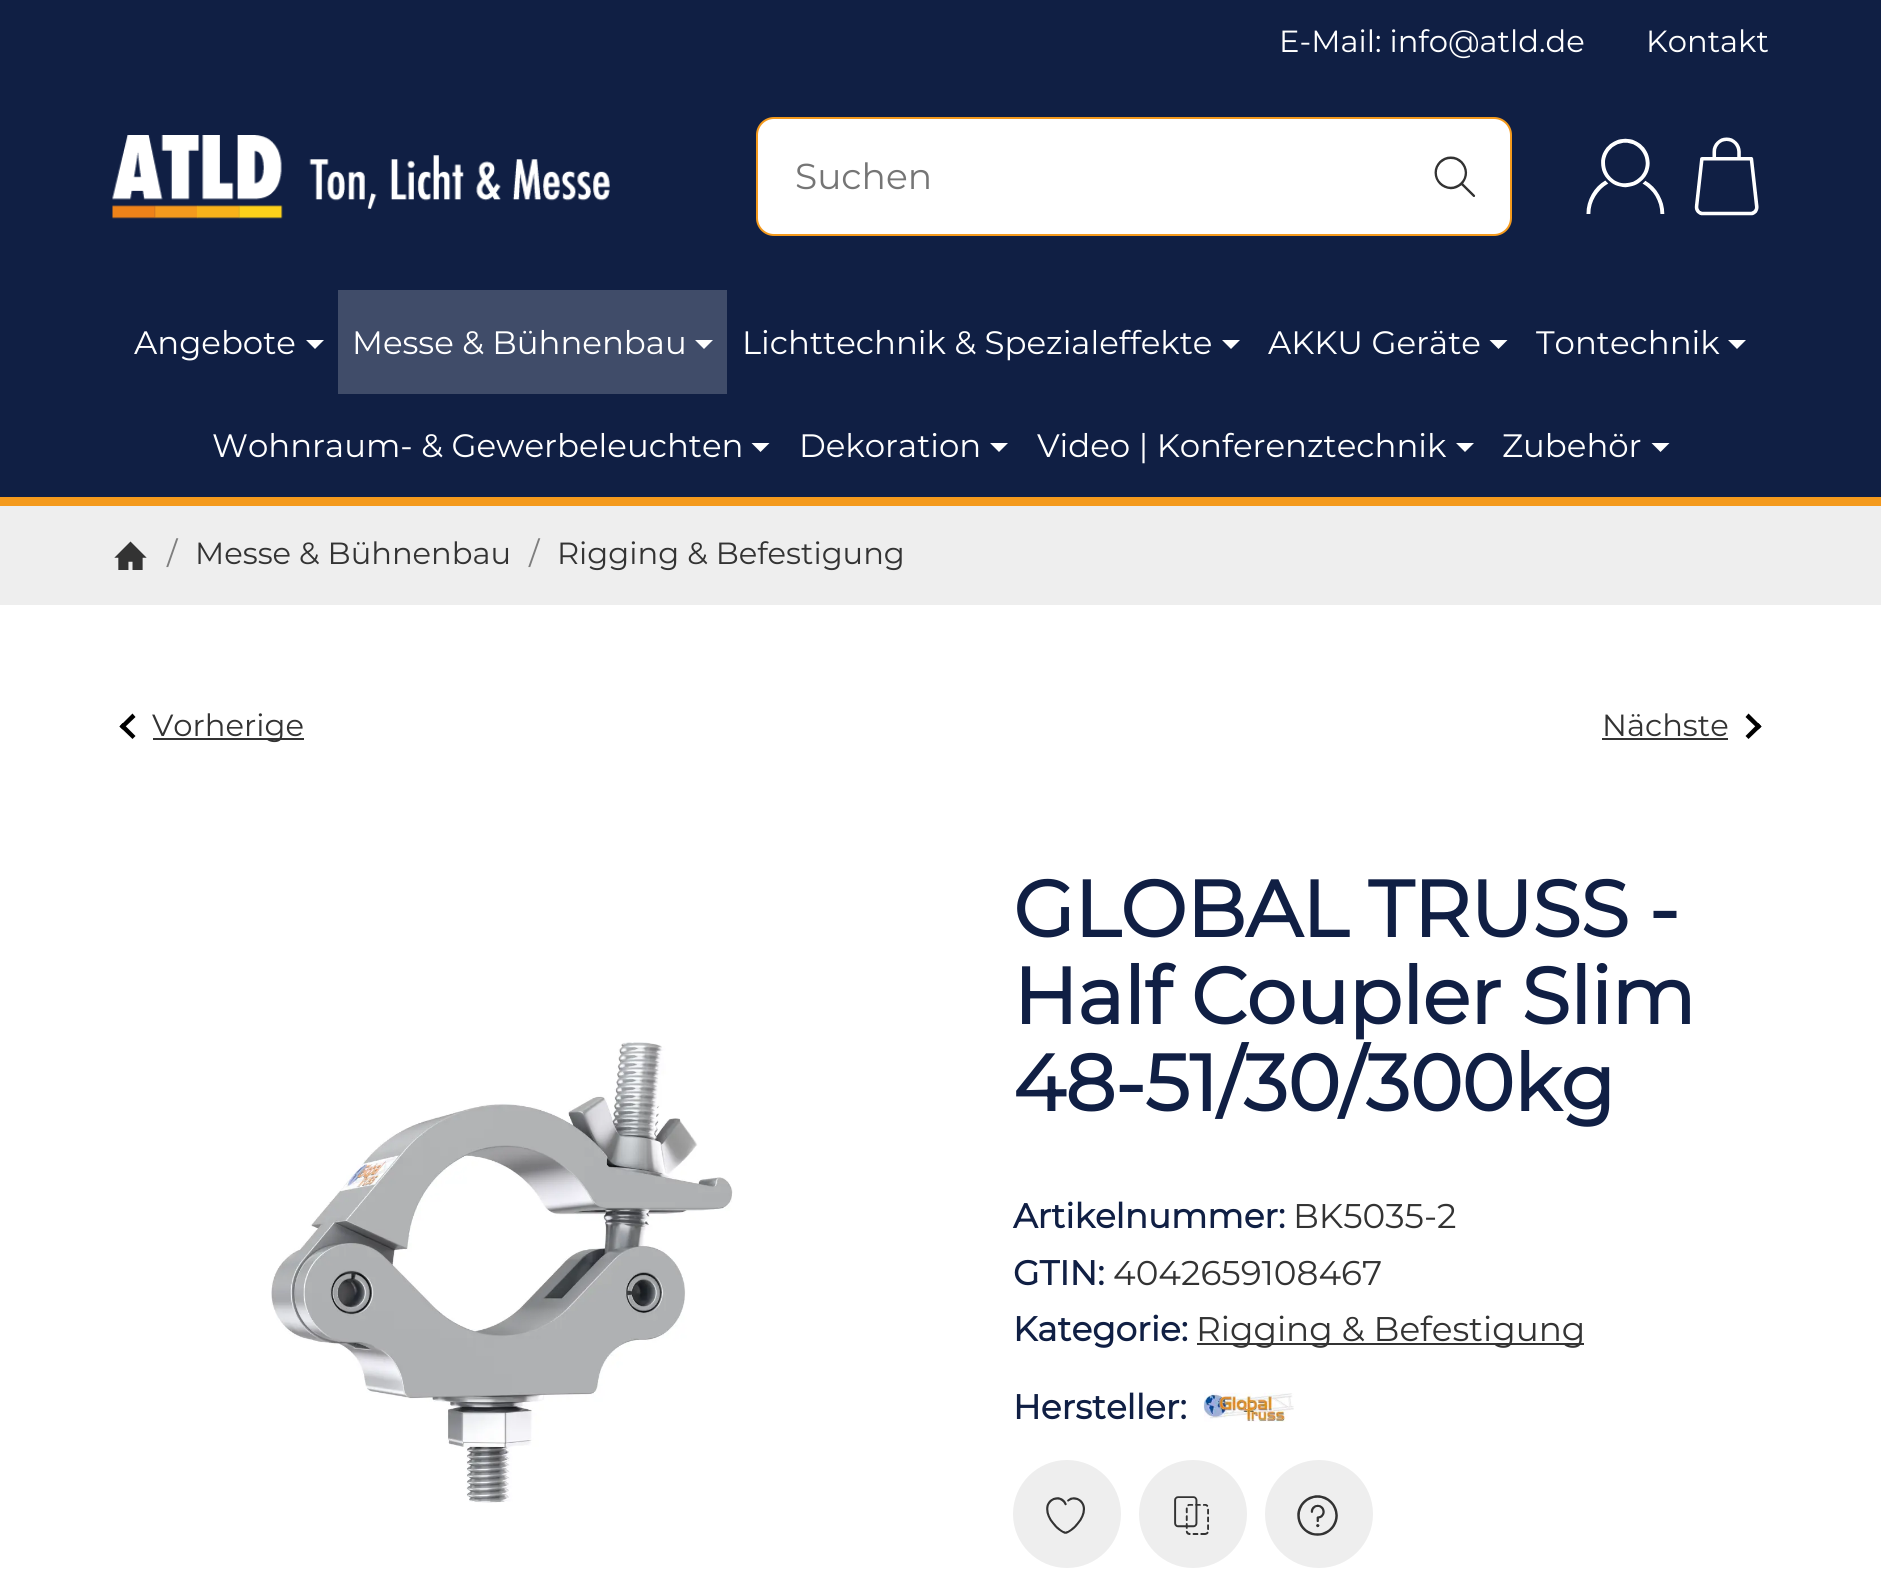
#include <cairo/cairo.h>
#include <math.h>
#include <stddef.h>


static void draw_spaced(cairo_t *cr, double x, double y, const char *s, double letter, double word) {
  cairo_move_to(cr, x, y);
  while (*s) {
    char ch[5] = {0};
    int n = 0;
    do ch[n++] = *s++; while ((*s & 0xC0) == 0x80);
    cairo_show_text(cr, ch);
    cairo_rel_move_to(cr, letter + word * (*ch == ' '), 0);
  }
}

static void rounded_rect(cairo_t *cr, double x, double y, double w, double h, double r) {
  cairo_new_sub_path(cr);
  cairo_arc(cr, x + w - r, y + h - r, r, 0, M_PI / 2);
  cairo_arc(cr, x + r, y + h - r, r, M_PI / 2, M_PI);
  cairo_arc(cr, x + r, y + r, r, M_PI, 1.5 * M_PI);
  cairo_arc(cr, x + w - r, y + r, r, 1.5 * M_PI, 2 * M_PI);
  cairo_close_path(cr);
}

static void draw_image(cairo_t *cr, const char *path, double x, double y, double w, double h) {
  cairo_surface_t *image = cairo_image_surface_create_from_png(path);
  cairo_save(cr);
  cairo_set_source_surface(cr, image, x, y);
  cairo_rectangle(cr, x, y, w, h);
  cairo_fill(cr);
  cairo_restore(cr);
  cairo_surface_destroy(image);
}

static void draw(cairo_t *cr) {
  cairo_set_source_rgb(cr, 1, 1, 1);
  cairo_paint(cr);
  cairo_set_source_rgb(cr, 16 / 255.0, 31 / 255.0, 68 / 255.0);
  cairo_rectangle(cr, 0, 0, 1881, 497);
  cairo_fill(cr);
  draw_image(cr, "images/1.png", 112, 135, 498, 84);
  cairo_set_source_rgb(cr, 1, 1, 1);
  rounded_rect(cr, 757, 118, 754, 117, 17);
  cairo_fill_preserve(cr);
  cairo_set_source_rgb(cr, 244 / 255.0, 154 / 255.0, 29 / 255.0);
  cairo_stroke(cr);
  draw_image(cr, "images/2.png", 1434, 156, 42, 41);
  draw_image(cr, "images/3.png", 1586, 138, 79, 76);
  draw_image(cr, "images/4.png", 1694, 137, 65, 79);
  cairo_rectangle(cr, 0, 497, 1881, 9);
  cairo_fill(cr);
  cairo_set_source_rgb(cr, 1, 1, 1);
  cairo_new_path(cr);
  cairo_move_to(cr, 306, 340);
  cairo_line_to(cr, 324, 340);
  cairo_line_to(cr, 315, 349);
  cairo_close_path(cr);
  cairo_fill(cr);
  cairo_set_source_rgb(cr, 64 / 255.0, 76 / 255.0, 105 / 255.0);
  cairo_rectangle(cr, 338, 290, 389, 104);
  cairo_fill(cr);
  cairo_set_source_rgb(cr, 1, 1, 1);
  cairo_new_path(cr);
  cairo_move_to(cr, 695, 340);
  cairo_line_to(cr, 713, 340);
  cairo_line_to(cr, 704, 349);
  cairo_close_path(cr);
  cairo_fill(cr);
  cairo_new_path(cr);
  cairo_move_to(cr, 1222, 340);
  cairo_line_to(cr, 1240, 340);
  cairo_line_to(cr, 1231, 349);
  cairo_close_path(cr);
  cairo_fill(cr);
  cairo_new_path(cr);
  cairo_move_to(cr, 1489.5, 340);
  cairo_line_to(cr, 1507.5, 340);
  cairo_line_to(cr, 1498.5, 349);
  cairo_close_path(cr);
  cairo_fill(cr);
  cairo_new_path(cr);
  cairo_move_to(cr, 1728, 340);
  cairo_line_to(cr, 1746, 340);
  cairo_line_to(cr, 1737, 349);
  cairo_close_path(cr);
  cairo_fill(cr);
  cairo_new_path(cr);
  cairo_move_to(cr, 751.5, 443);
  cairo_line_to(cr, 769.5, 443);
  cairo_line_to(cr, 760.5, 452);
  cairo_close_path(cr);
  cairo_fill(cr);
  cairo_new_path(cr);
  cairo_move_to(cr, 990, 443);
  cairo_line_to(cr, 1008, 443);
  cairo_line_to(cr, 999, 452);
  cairo_close_path(cr);
  cairo_fill(cr);
  cairo_new_path(cr);
  cairo_move_to(cr, 1456, 443);
  cairo_line_to(cr, 1474, 443);
  cairo_line_to(cr, 1465, 452);
  cairo_close_path(cr);
  cairo_fill(cr);
  cairo_new_path(cr);
  cairo_move_to(cr, 1651.5, 443);
  cairo_line_to(cr, 1669.5, 443);
  cairo_line_to(cr, 1660.5, 452);
  cairo_close_path(cr);
  cairo_fill(cr);
  cairo_set_source_rgb(cr, 238 / 255.0, 238 / 255.0, 238 / 255.0);
  cairo_rectangle(cr, 0, 506, 1881, 99);
  cairo_fill(cr);
  draw_image(cr, "images/5.png", 114, 541, 33, 29);
  cairo_set_source_rgb(cr, 0, 0, 0);
  cairo_new_path(cr);
  cairo_move_to(cr, 135.5, 736);
  cairo_line_to(cr, 132.5, 739);
  cairo_line_to(cr, 119.5, 726.5);
  cairo_line_to(cr, 122.5, 723);
  cairo_close_path(cr);
  cairo_fill(cr);
  cairo_new_path(cr);
  cairo_move_to(cr, 135.5, 717);
  cairo_line_to(cr, 122.5, 729.5);
  cairo_line_to(cr, 119.5, 726.5);
  cairo_line_to(cr, 132.5, 713.5);
  cairo_close_path(cr);
  cairo_fill(cr);
  cairo_set_source_rgb(cr, 51 / 255.0, 51 / 255.0, 51 / 255.0);
  cairo_rectangle(cr, 153, 738, 151, 2);
  cairo_fill(cr);
  cairo_rectangle(cr, 1602, 738, 126, 2);
  cairo_fill(cr);
  cairo_set_source_rgb(cr, 0, 0, 0);
  cairo_new_path(cr);
  cairo_move_to(cr, 1745.5, 717);
  cairo_line_to(cr, 1748.5, 713.5);
  cairo_line_to(cr, 1761.5, 726.5);
  cairo_line_to(cr, 1758.5, 729.5);
  cairo_close_path(cr);
  cairo_fill(cr);
  cairo_new_path(cr);
  cairo_move_to(cr, 1745.5, 736);
  cairo_line_to(cr, 1758.5, 723);
  cairo_line_to(cr, 1761.5, 726.5);
  cairo_line_to(cr, 1748.5, 739);
  cairo_close_path(cr);
  cairo_fill(cr);
  draw_image(cr, "images/6.png", 271, 1042, 462, 461);
  cairo_set_source_rgb(cr, 51 / 255.0, 51 / 255.0, 51 / 255.0);
  cairo_rectangle(cr, 1197, 1343, 387, 2);
  cairo_fill(cr);
  draw_image(cr, "images/7.png", 1203, 1392, 91, 30);
  cairo_set_source_rgb(cr, 238 / 255.0, 238 / 255.0, 238 / 255.0);
  cairo_arc(cr, 1067, 1514, 53, 0, 2 * M_PI);
  cairo_fill_preserve(cr);
  cairo_stroke(cr);
  draw_image(cr, "images/8.png", 1046, 1497, 39, 37);
  cairo_arc(cr, 1193, 1514, 53, 0, 2 * M_PI);
  cairo_fill_preserve(cr);
  cairo_stroke(cr);
  draw_image(cr, "images/9.png", 1174, 1496, 35, 39);
  cairo_arc(cr, 1319, 1514, 53, 0, 2 * M_PI);
  cairo_fill_preserve(cr);
  cairo_stroke(cr);
  draw_image(cr, "images/10.png", 1297, 1495, 41, 41);
  cairo_select_font_face(cr, "Montserrat", CAIRO_FONT_SLANT_NORMAL, CAIRO_FONT_WEIGHT_NORMAL);
  cairo_set_font_size(cr, 30.6);
  cairo_set_source_rgb(cr, 1, 1, 1);
  cairo_move_to(cr, 1279, 52);
  cairo_show_text(cr, "E-Mail: info@atld.de");
  cairo_move_to(cr, 1646, 52);
  cairo_show_text(cr, "Kontakt");
  cairo_set_font_size(cr, 36);
  cairo_set_source_rgb(cr, 117 / 255.0, 117 / 255.0, 117 / 255.0);
  cairo_move_to(cr, 795, 189);
  cairo_show_text(cr, "Suchen");
  cairo_set_font_size(cr, 32.4);
  cairo_set_source_rgb(cr, 1, 1, 1);
  cairo_move_to(cr, 134, 354);
  cairo_show_text(cr, "Angebote");
  cairo_move_to(cr, 352, 354);
  cairo_show_text(cr, "Messe & Bühnenbau");
  cairo_move_to(cr, 742, 354);
  cairo_show_text(cr, "Lichttechnik & Spezialeffekte");
  cairo_move_to(cr, 1268, 354);
  cairo_show_text(cr, "AKKU Geräte");
  cairo_move_to(cr, 1536, 354);
  cairo_show_text(cr, "Tontechnik");
  cairo_move_to(cr, 212, 457);
  cairo_show_text(cr, "Wohnraum- & Gewerbeleuchten");
  cairo_move_to(cr, 799, 457);
  cairo_show_text(cr, "Dekoration");
  cairo_move_to(cr, 1037, 457);
  cairo_show_text(cr, "Video | Konferenztechnik");
  cairo_move_to(cr, 1502, 457);
  cairo_show_text(cr, "Zubehör");
  cairo_set_font_size(cr, 30.6);
  cairo_set_source_rgb(cr, 126 / 255.0, 126 / 255.0, 126 / 255.0);
  cairo_move_to(cr, 167, 564);
  cairo_show_text(cr, "/");
  cairo_set_source_rgb(cr, 51 / 255.0, 51 / 255.0, 51 / 255.0);
  cairo_move_to(cr, 195, 564);
  cairo_show_text(cr, "Messe & Bühnenbau");
  cairo_set_source_rgb(cr, 126 / 255.0, 126 / 255.0, 126 / 255.0);
  cairo_move_to(cr, 529, 564);
  cairo_show_text(cr, "/");
  cairo_set_source_rgb(cr, 51 / 255.0, 51 / 255.0, 51 / 255.0);
  cairo_move_to(cr, 557, 564);
  cairo_show_text(cr, "Rigging & Befestigung");
  cairo_move_to(cr, 152, 736);
  cairo_show_text(cr, "Vorherige");
  cairo_move_to(cr, 1602, 736);
  cairo_show_text(cr, "Nächste");
  cairo_select_font_face(cr, "Montserrat", CAIRO_FONT_SLANT_NORMAL, CAIRO_FONT_WEIGHT_BOLD);
  cairo_set_font_size(cr, 79.25);
  cairo_set_source_rgb(cr, 16 / 255.0, 31 / 255.0, 68 / 255.0);
  draw_spaced(cr, 1013, 937, "GLOBAL TRUSS -", -0.5, 0);
  draw_spaced(cr, 1013, 1024, "Half Coupler Slim", -0.5, 0);
  draw_spaced(cr, 1013, 1111, "48-51/30/300kg", -0.5, 0);
  cairo_set_font_size(cr, 34.25);
  cairo_move_to(cr, 1013, 1228);
  cairo_show_text(cr, "Artikelnummer:");
  cairo_select_font_face(cr, "Montserrat", CAIRO_FONT_SLANT_NORMAL, CAIRO_FONT_WEIGHT_NORMAL);
  cairo_set_source_rgb(cr, 51 / 255.0, 51 / 255.0, 51 / 255.0);
  cairo_move_to(cr, 1293, 1228);
  cairo_show_text(cr, "BK5035-2");
  cairo_select_font_face(cr, "Montserrat", CAIRO_FONT_SLANT_NORMAL, CAIRO_FONT_WEIGHT_BOLD);
  cairo_set_source_rgb(cr, 16 / 255.0, 31 / 255.0, 68 / 255.0);
  cairo_move_to(cr, 1013, 1285);
  cairo_show_text(cr, "GTIN:");
  cairo_select_font_face(cr, "Montserrat", CAIRO_FONT_SLANT_NORMAL, CAIRO_FONT_WEIGHT_NORMAL);
  cairo_set_source_rgb(cr, 51 / 255.0, 51 / 255.0, 51 / 255.0);
  cairo_move_to(cr, 1113, 1285);
  cairo_show_text(cr, "4042659108467");
  cairo_select_font_face(cr, "Montserrat", CAIRO_FONT_SLANT_NORMAL, CAIRO_FONT_WEIGHT_BOLD);
  cairo_set_source_rgb(cr, 16 / 255.0, 31 / 255.0, 68 / 255.0);
  cairo_move_to(cr, 1013, 1341);
  cairo_show_text(cr, "Kategorie:");
  cairo_select_font_face(cr, "Montserrat", CAIRO_FONT_SLANT_NORMAL, CAIRO_FONT_WEIGHT_NORMAL);
  cairo_set_source_rgb(cr, 51 / 255.0, 51 / 255.0, 51 / 255.0);
  cairo_move_to(cr, 1196, 1341);
  cairo_show_text(cr, "Rigging & Befestigung");
  cairo_select_font_face(cr, "Montserrat", CAIRO_FONT_SLANT_NORMAL, CAIRO_FONT_WEIGHT_BOLD);
  cairo_set_source_rgb(cr, 16 / 255.0, 31 / 255.0, 68 / 255.0);
  cairo_move_to(cr, 1013, 1419);
  cairo_show_text(cr, "Hersteller:");
}

int main(void) {
  cairo_surface_t *surface = cairo_image_surface_create(CAIRO_FORMAT_RGB24, 1881, 1574);
  cairo_t *cr = cairo_create(surface);
  cairo_font_options_t *options = cairo_font_options_create();
  cairo_font_options_set_hint_metrics(options, CAIRO_HINT_METRICS_OFF);
  cairo_font_options_set_hint_style(options, CAIRO_HINT_STYLE_NONE);
  cairo_set_font_options(cr, options);
  cairo_set_miter_limit(cr, 4);
  draw(cr);
  cairo_surface_write_to_png(surface, "out.png");
  cairo_font_options_destroy(options);
  cairo_destroy(cr);
  cairo_surface_destroy(surface);
  return 0;
}
